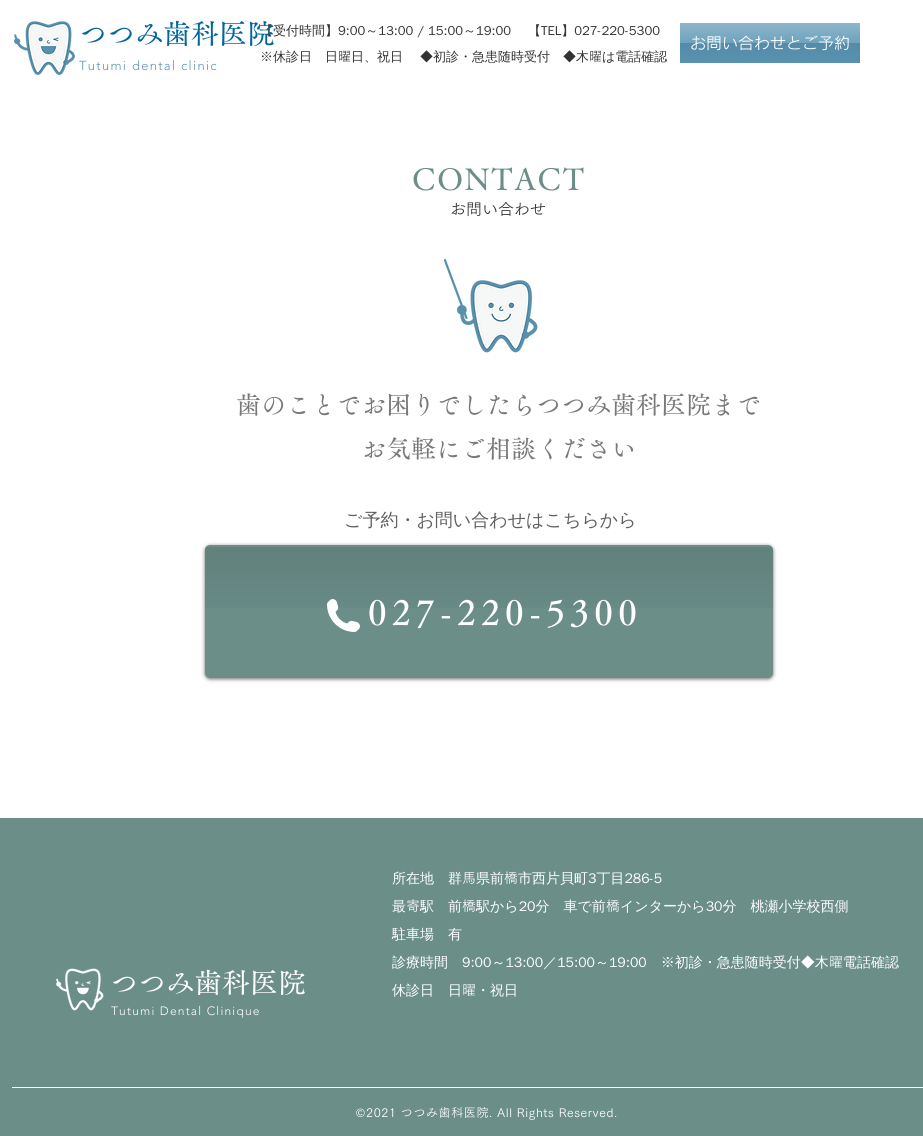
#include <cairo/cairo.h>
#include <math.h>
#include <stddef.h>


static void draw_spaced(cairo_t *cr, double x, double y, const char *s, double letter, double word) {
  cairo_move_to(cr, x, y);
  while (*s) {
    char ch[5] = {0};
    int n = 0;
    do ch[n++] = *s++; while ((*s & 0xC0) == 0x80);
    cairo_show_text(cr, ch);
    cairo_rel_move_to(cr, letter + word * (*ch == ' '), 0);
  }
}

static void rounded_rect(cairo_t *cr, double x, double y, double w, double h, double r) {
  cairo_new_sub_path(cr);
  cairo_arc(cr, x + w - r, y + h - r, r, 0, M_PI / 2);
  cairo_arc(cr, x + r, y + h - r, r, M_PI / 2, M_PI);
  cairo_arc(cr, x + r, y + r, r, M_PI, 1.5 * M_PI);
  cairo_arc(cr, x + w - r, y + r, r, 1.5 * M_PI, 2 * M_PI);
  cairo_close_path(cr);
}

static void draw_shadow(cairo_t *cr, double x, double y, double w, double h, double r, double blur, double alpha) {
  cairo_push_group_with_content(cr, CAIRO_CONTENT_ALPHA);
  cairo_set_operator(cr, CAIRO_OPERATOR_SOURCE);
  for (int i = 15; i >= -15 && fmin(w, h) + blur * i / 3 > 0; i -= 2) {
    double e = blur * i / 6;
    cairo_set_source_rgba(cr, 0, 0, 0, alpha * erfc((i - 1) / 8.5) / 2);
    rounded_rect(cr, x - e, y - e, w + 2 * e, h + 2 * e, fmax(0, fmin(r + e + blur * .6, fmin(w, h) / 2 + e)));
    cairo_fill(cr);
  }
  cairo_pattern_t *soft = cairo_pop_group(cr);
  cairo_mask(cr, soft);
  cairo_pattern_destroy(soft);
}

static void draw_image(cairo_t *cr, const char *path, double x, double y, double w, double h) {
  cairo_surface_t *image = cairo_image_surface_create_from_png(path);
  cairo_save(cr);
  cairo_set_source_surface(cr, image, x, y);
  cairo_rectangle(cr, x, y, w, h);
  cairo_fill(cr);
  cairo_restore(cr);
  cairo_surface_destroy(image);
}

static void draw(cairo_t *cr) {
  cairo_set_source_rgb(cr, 1, 1, 1);
  cairo_paint(cr);
  draw_image(cr, "images/1.png", 13, 21, 62, 55);
  cairo_set_source_rgb(cr, 91 / 255.0, 150 / 255.0, 181 / 255.0);
  cairo_rectangle(cr, 680, 23, 180, 40);
  cairo_fill(cr);
  draw_image(cr, "images/2.png", 680, 23, 180, 40);
  draw_image(cr, "images/3.png", 443, 259, 95, 94);
  cairo_set_source_rgb(cr, 0, 0, 0);
  draw_shadow(cr, 205, 546, 568, 133, 5, 2, 0.6);
  cairo_set_source_rgb(cr, 107 / 255.0, 142 / 255.0, 137 / 255.0);
  rounded_rect(cr, 205, 545, 568, 133, 5);
  cairo_fill(cr);
  draw_image(cr, "images/4.png", 205, 547, 568, 61);
  draw_image(cr, "images/5.png", 327, 599, 33, 33);
  cairo_rectangle(cr, 0, 818, 923, 318);
  cairo_fill(cr);
  draw_image(cr, "images/6.png", 56, 968, 48, 43);
  cairo_set_source_rgb(cr, 1, 1, 1);
  cairo_rectangle(cr, 12, 1087, 911, 1);
  cairo_fill(cr);
  cairo_select_font_face(cr, "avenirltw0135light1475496 Light", CAIRO_FONT_SLANT_NORMAL, CAIRO_FONT_WEIGHT_NORMAL);
  cairo_set_font_size(cr, 13);
  cairo_set_source_rgb(cr, 91 / 255.0, 150 / 255.0, 181 / 255.0);
  draw_spaced(cr, 79, 70, "Tutumi dental clinic", 1.3, 0);
  cairo_select_font_face(cr, "WenQuanYi Zen Hei Medium", CAIRO_FONT_SLANT_NORMAL, CAIRO_FONT_WEIGHT_NORMAL);
  cairo_set_source_rgb(cr, 51 / 255.0, 51 / 255.0, 51 / 255.0);
  cairo_move_to(cr, 260, 35);
  cairo_show_text(cr, "【受付時間】9:00～13:00 / 15:00～19:00 　【TEL】027-220-5300");
  cairo_select_font_face(cr, "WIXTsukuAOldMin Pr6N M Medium", CAIRO_FONT_SLANT_NORMAL, CAIRO_FONT_WEIGHT_NORMAL);
  cairo_set_font_size(cr, 28);
  cairo_set_source_rgb(cr, 0, 102 / 255.0, 157 / 255.0);
  cairo_move_to(cr, 79, 44);
  cairo_show_text(cr, "つつみ歯科医院");
  cairo_select_font_face(cr, "WenQuanYi Zen Hei Medium", CAIRO_FONT_SLANT_NORMAL, CAIRO_FONT_WEIGHT_NORMAL);
  cairo_set_font_size(cr, 13);
  cairo_set_source_rgb(cr, 51 / 255.0, 51 / 255.0, 51 / 255.0);
  cairo_move_to(cr, 260, 61);
  cairo_show_text(cr, "※休診日　日");
  cairo_select_font_face(cr, "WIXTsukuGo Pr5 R", CAIRO_FONT_SLANT_NORMAL, CAIRO_FONT_WEIGHT_NORMAL);
  cairo_move_to(cr, 338, 61);
  cairo_show_text(cr, "曜");
  cairo_select_font_face(cr, "WenQuanYi Zen Hei Medium", CAIRO_FONT_SLANT_NORMAL, CAIRO_FONT_WEIGHT_NORMAL);
  cairo_move_to(cr, 351, 61);
  cairo_show_text(cr, "日、祝日　 ◆初診・急患随時受付　◆木");
  cairo_select_font_face(cr, "WIXTsukuGo Pr5 R", CAIRO_FONT_SLANT_NORMAL, CAIRO_FONT_WEIGHT_NORMAL);
  cairo_move_to(cr, 589, 61);
  cairo_show_text(cr, "曜");
  cairo_select_font_face(cr, "WenQuanYi Zen Hei Medium", CAIRO_FONT_SLANT_NORMAL, CAIRO_FONT_WEIGHT_NORMAL);
  cairo_move_to(cr, 602, 61);
  cairo_show_text(cr, "は電話確認");
  cairo_select_font_face(cr, "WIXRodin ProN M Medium", CAIRO_FONT_SLANT_NORMAL, CAIRO_FONT_WEIGHT_NORMAL);
  cairo_set_font_size(cr, 16);
  cairo_set_source_rgb(cr, 1, 1, 1);
  cairo_move_to(cr, 690, 49);
  cairo_show_text(cr, "お問い合わせとご予約");
  cairo_select_font_face(cr, "WIXTsukuAOldMin Pr6N M Medium", CAIRO_FONT_SLANT_NORMAL, CAIRO_FONT_WEIGHT_NORMAL);
  cairo_set_font_size(cr, 30);
  cairo_set_source_rgb(cr, 107 / 255.0, 142 / 255.0, 137 / 255.0);
  draw_spaced(cr, 412, 190, "CONTACT", 1.75, 0);
  cairo_select_font_face(cr, "WIXTsukuGo Pr5 R", CAIRO_FONT_SLANT_NORMAL, CAIRO_FONT_WEIGHT_NORMAL);
  cairo_set_font_size(cr, 16);
  cairo_set_source_rgb(cr, 51 / 255.0, 51 / 255.0, 51 / 255.0);
  cairo_move_to(cr, 450, 215);
  cairo_show_text(cr, "お問い合わせ");
  cairo_select_font_face(cr, "WIXTsukuAOldMin Pr6N M Medium", CAIRO_FONT_SLANT_NORMAL, CAIRO_FONT_WEIGHT_NORMAL);
  cairo_set_font_size(cr, 25);
  cairo_set_source_rgb(cr, 122 / 255.0, 121 / 255.0, 121 / 255.0);
  cairo_move_to(cr, 236, 414);
  cairo_show_text(cr, "歯のことでお困りでしたらつつみ歯科医院まで");
  cairo_move_to(cr, 361, 458);
  cairo_show_text(cr, "お気軽にご相談ください");
  cairo_set_font_size(cr, 35);
  cairo_set_source_rgb(cr, 1, 1, 1);
  draw_spaced(cr, 368, 625, "027-220-5300", 5.25, 0);
  cairo_select_font_face(cr, "WenQuanYi Zen Hei Medium", CAIRO_FONT_SLANT_NORMAL, CAIRO_FONT_WEIGHT_NORMAL);
  cairo_set_font_size(cr, 18);
  cairo_set_source_rgb(cr, 96 / 255.0, 96 / 255.0, 96 / 255.0);
  cairo_move_to(cr, 344, 526);
  cairo_show_text(cr, "ご予約・お問い合わせはこちらから");
  cairo_select_font_face(cr, "WIXTsukuAOldMin Pr6N M Medium", CAIRO_FONT_SLANT_NORMAL, CAIRO_FONT_WEIGHT_NORMAL);
  cairo_set_font_size(cr, 28);
  cairo_set_source_rgb(cr, 1, 1, 1);
  cairo_move_to(cr, 110, 993);
  cairo_show_text(cr, "つつみ歯科医院");
  cairo_select_font_face(cr, "avenirltw0135light1475496 Light", CAIRO_FONT_SLANT_NORMAL, CAIRO_FONT_WEIGHT_NORMAL);
  cairo_set_font_size(cr, 12);
  draw_spaced(cr, 111, 1015, "Tutumi Dental Clinique", 1.2, 0);
  cairo_select_font_face(cr, "WenQuanYi Zen Hei Medium", CAIRO_FONT_SLANT_NORMAL, CAIRO_FONT_WEIGHT_NORMAL);
  cairo_set_font_size(cr, 14);
  cairo_move_to(cr, 392, 883);
  cairo_show_text(cr, "所在地　群");
  cairo_select_font_face(cr, "WIXTsukuGo Pr5 R", CAIRO_FONT_SLANT_NORMAL, CAIRO_FONT_WEIGHT_NORMAL);
  cairo_move_to(cr, 462, 883);
  cairo_show_text(cr, "馬");
  cairo_select_font_face(cr, "WenQuanYi Zen Hei Medium", CAIRO_FONT_SLANT_NORMAL, CAIRO_FONT_WEIGHT_NORMAL);
  cairo_move_to(cr, 476, 883);
  cairo_show_text(cr, "県前");
  cairo_select_font_face(cr, "WIXTsukuGo Pr5 R", CAIRO_FONT_SLANT_NORMAL, CAIRO_FONT_WEIGHT_NORMAL);
  cairo_move_to(cr, 504, 883);
  cairo_show_text(cr, "橋");
  cairo_select_font_face(cr, "WenQuanYi Zen Hei Medium", CAIRO_FONT_SLANT_NORMAL, CAIRO_FONT_WEIGHT_NORMAL);
  cairo_move_to(cr, 518, 883);
  cairo_show_text(cr, "市西片貝町3丁目286-5");
  cairo_move_to(cr, 392, 911);
  cairo_show_text(cr, "最");
  cairo_select_font_face(cr, "WIXTsukuGo Pr5 R", CAIRO_FONT_SLANT_NORMAL, CAIRO_FONT_WEIGHT_NORMAL);
  cairo_move_to(cr, 406, 911);
  cairo_show_text(cr, "寄");
  cairo_select_font_face(cr, "WenQuanYi Zen Hei Medium", CAIRO_FONT_SLANT_NORMAL, CAIRO_FONT_WEIGHT_NORMAL);
  cairo_move_to(cr, 420, 911);
  cairo_show_text(cr, "駅　前");
  cairo_select_font_face(cr, "WIXTsukuGo Pr5 R", CAIRO_FONT_SLANT_NORMAL, CAIRO_FONT_WEIGHT_NORMAL);
  cairo_move_to(cr, 462, 911);
  cairo_show_text(cr, "橋");
  cairo_select_font_face(cr, "WenQuanYi Zen Hei Medium", CAIRO_FONT_SLANT_NORMAL, CAIRO_FONT_WEIGHT_NORMAL);
  cairo_move_to(cr, 476, 911);
  cairo_show_text(cr, "駅から20分　車で前");
  cairo_select_font_face(cr, "WIXTsukuGo Pr5 R", CAIRO_FONT_SLANT_NORMAL, CAIRO_FONT_WEIGHT_NORMAL);
  cairo_move_to(cr, 606, 911);
  cairo_show_text(cr, "橋");
  cairo_select_font_face(cr, "WenQuanYi Zen Hei Medium", CAIRO_FONT_SLANT_NORMAL, CAIRO_FONT_WEIGHT_NORMAL);
  cairo_move_to(cr, 620, 911);
  cairo_show_text(cr, "インターから30分　桃瀬小学校西側");
  cairo_move_to(cr, 392, 939);
  cairo_show_text(cr, "駐車場　有");
  cairo_move_to(cr, 392, 967);
  cairo_show_text(cr, "診療時間　9:00～13:00／15:00～19:00　※初診・急患随時受付◆木");
  cairo_select_font_face(cr, "WIXTsukuGo Pr5 R", CAIRO_FONT_SLANT_NORMAL, CAIRO_FONT_WEIGHT_NORMAL);
  cairo_move_to(cr, 829, 967);
  cairo_show_text(cr, "曜");
  cairo_select_font_face(cr, "WenQuanYi Zen Hei Medium", CAIRO_FONT_SLANT_NORMAL, CAIRO_FONT_WEIGHT_NORMAL);
  cairo_move_to(cr, 843, 967);
  cairo_show_text(cr, "電話確認");
  cairo_move_to(cr, 392, 995);
  cairo_show_text(cr, "休診日　日");
  cairo_select_font_face(cr, "WIXTsukuGo Pr5 R", CAIRO_FONT_SLANT_NORMAL, CAIRO_FONT_WEIGHT_NORMAL);
  cairo_move_to(cr, 462, 995);
  cairo_show_text(cr, "曜");
  cairo_select_font_face(cr, "WenQuanYi Zen Hei Medium", CAIRO_FONT_SLANT_NORMAL, CAIRO_FONT_WEIGHT_NORMAL);
  cairo_move_to(cr, 476, 995);
  cairo_show_text(cr, "・祝日");
  cairo_select_font_face(cr, "Liberation Sans", CAIRO_FONT_SLANT_NORMAL, CAIRO_FONT_WEIGHT_NORMAL);
  cairo_set_font_size(cr, 12);
  draw_spaced(cr, 356, 1117, "©", 0.6, 0);
  cairo_select_font_face(cr, "WIXTsukuGo Pr5 R", CAIRO_FONT_SLANT_NORMAL, CAIRO_FONT_WEIGHT_NORMAL);
  draw_spaced(cr, 366, 1117, "2021 つつみ歯科医院. All Rights Reserved.", 0.6, 0);
}

int main(void) {
  cairo_surface_t *surface = cairo_image_surface_create(CAIRO_FORMAT_RGB24, 923, 1136);
  cairo_t *cr = cairo_create(surface);
  cairo_font_options_t *options = cairo_font_options_create();
  cairo_font_options_set_hint_metrics(options, CAIRO_HINT_METRICS_OFF);
  cairo_font_options_set_hint_style(options, CAIRO_HINT_STYLE_NONE);
  cairo_set_font_options(cr, options);
  cairo_set_miter_limit(cr, 4);
  draw(cr);
  cairo_surface_write_to_png(surface, "out.png");
  cairo_font_options_destroy(options);
  cairo_destroy(cr);
  cairo_surface_destroy(surface);
  return 0;
}
